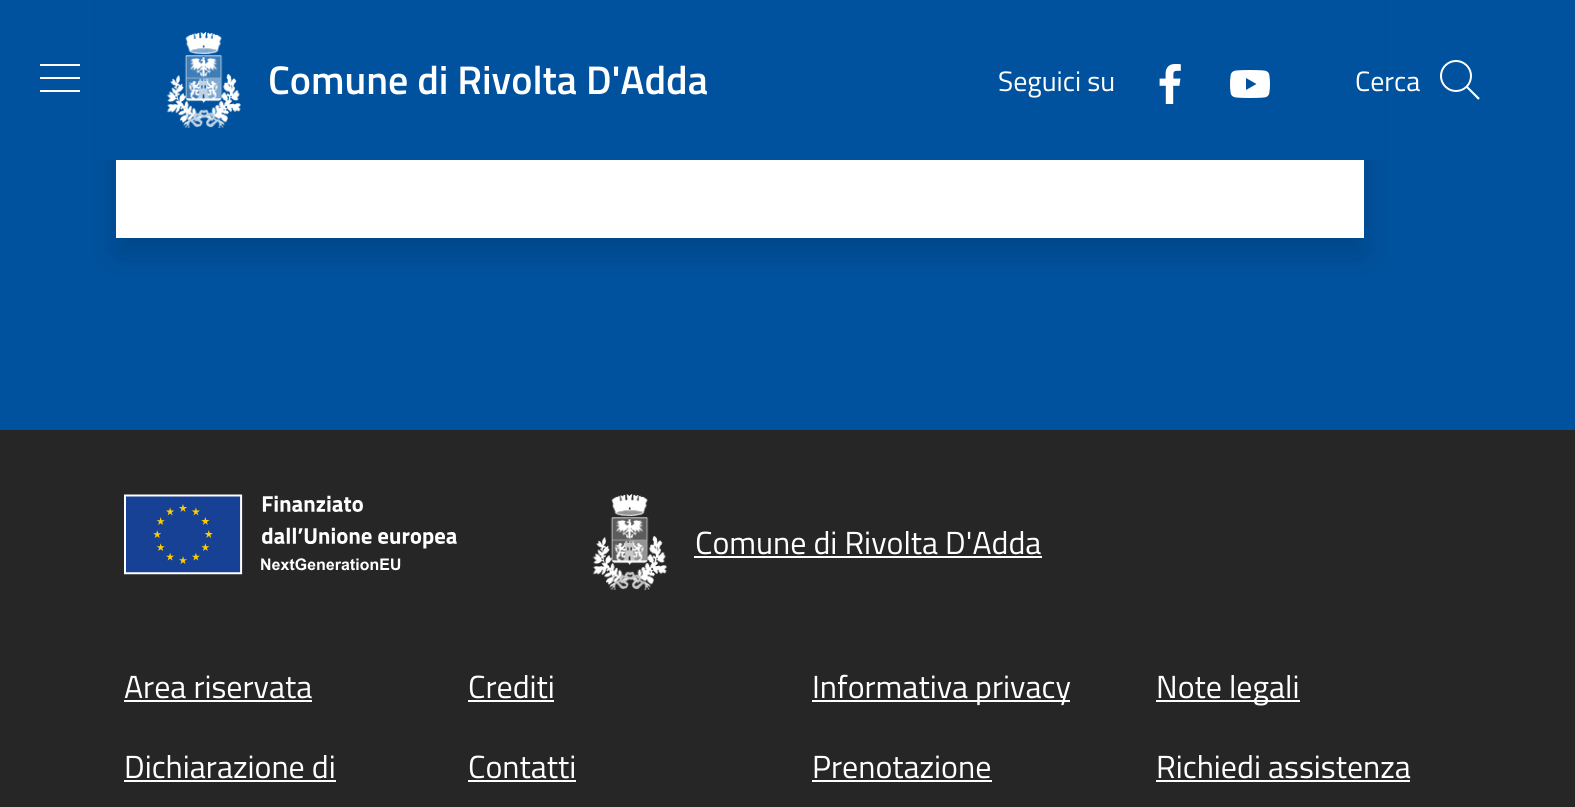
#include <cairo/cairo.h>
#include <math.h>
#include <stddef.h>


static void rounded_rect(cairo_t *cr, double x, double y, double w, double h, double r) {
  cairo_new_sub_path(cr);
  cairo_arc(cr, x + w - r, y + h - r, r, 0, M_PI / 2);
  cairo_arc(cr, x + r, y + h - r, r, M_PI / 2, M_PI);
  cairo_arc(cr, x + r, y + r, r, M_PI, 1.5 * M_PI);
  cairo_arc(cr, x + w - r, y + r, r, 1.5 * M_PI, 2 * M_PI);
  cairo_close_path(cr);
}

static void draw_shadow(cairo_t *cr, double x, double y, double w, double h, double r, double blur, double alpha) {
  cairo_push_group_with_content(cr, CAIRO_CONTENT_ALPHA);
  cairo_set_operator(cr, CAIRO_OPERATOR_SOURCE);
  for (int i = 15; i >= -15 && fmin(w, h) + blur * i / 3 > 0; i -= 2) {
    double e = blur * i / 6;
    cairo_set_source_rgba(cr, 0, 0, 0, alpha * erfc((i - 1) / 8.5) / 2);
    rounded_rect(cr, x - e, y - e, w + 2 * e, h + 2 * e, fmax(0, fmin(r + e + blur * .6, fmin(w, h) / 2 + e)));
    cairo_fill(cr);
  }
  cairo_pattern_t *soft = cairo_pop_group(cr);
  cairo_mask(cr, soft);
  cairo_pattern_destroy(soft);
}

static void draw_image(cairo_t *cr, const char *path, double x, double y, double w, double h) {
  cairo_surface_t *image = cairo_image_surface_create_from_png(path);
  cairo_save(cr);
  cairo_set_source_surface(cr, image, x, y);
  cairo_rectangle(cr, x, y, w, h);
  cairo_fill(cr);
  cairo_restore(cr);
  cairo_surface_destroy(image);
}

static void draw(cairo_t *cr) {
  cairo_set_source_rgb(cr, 0, 82 / 255.0, 158 / 255.0);
  cairo_paint(cr);
  cairo_set_source_rgb(cr, 0, 0, 0);
  draw_shadow(cr, 116, -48, 1248, 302, 0, 16, 0.15);
  cairo_set_source_rgb(cr, 1, 1, 1);
  cairo_rectangle(cr, 116, 160, 1248, 78);
  cairo_fill(cr);
  cairo_new_path(cr);
  cairo_move_to(cr, 80, 64);
  cairo_line_to(cr, 80, 66);
  cairo_line_to(cr, 40, 66);
  cairo_line_to(cr, 40, 64);
  cairo_close_path(cr);
  cairo_move_to(cr, 40, 79);
  cairo_line_to(cr, 80, 79);
  cairo_line_to(cr, 80, 77);
  cairo_line_to(cr, 40, 77);
  cairo_close_path(cr);
  cairo_move_to(cr, 40, 92);
  cairo_line_to(cr, 80, 92);
  cairo_line_to(cr, 80, 90);
  cairo_line_to(cr, 40, 90);
  cairo_close_path(cr);
  cairo_fill(cr);
  cairo_set_source_rgb(cr, 0, 82 / 255.0, 158 / 255.0);
  cairo_rectangle(cr, 96, 0, 1288, 160);
  cairo_fill(cr);
  draw_image(cr, "images/1.png", 166, 32, 75, 96);
  draw_image(cr, "images/2.png", 1159, 64, 22, 40);
  draw_image(cr, "images/3.png", 1230, 70, 40, 28);
  draw_image(cr, "images/4.png", 1440, 60, 40, 40);
  cairo_set_source_rgb(cr, 38 / 255.0, 38 / 255.0, 38 / 255.0);
  cairo_rectangle(cr, 0, 430, 1575, 377);
  cairo_fill(cr);
  draw_image(cr, "images/5.png", 124, 494, 333, 81);
  draw_image(cr, "images/6.png", 592, 494, 75, 96);
  cairo_set_source_rgb(cr, 1, 1, 1);
  cairo_rectangle(cr, 694, 556, 348, 2);
  cairo_fill(cr);
  cairo_rectangle(cr, 124, 700, 188, 2);
  cairo_fill(cr);
  cairo_rectangle(cr, 468, 700, 86, 2);
  cairo_fill(cr);
  cairo_rectangle(cr, 812, 700, 258, 2);
  cairo_fill(cr);
  cairo_rectangle(cr, 1156, 700, 144, 2);
  cairo_fill(cr);
  cairo_rectangle(cr, 124, 780, 212, 2);
  cairo_fill(cr);
  cairo_rectangle(cr, 468, 780, 108, 2);
  cairo_fill(cr);
  cairo_rectangle(cr, 812, 780, 180, 2);
  cairo_fill(cr);
  cairo_rectangle(cr, 1156, 780, 254, 2);
  cairo_fill(cr);
  cairo_select_font_face(cr, "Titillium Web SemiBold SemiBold", CAIRO_FONT_SLANT_NORMAL, CAIRO_FONT_WEIGHT_NORMAL);
  cairo_set_font_size(cr, 40);
  cairo_move_to(cr, 268, 94);
  cairo_show_text(cr, "Comune di Rivolta D'Adda");
  cairo_select_font_face(cr, "Titillium Web", CAIRO_FONT_SLANT_NORMAL, CAIRO_FONT_WEIGHT_NORMAL);
  cairo_set_font_size(cr, 28);
  cairo_move_to(cr, 998, 91);
  cairo_show_text(cr, "Seguici su");
  cairo_move_to(cr, 1355, 91);
  cairo_show_text(cr, "Cerca");
  cairo_set_font_size(cr, 32);
  cairo_move_to(cr, 695, 554);
  cairo_show_text(cr, "Comune di Rivolta D'Adda");
  cairo_move_to(cr, 124, 698);
  cairo_show_text(cr, "Area riservata");
  cairo_move_to(cr, 468, 698);
  cairo_show_text(cr, "Crediti");
  cairo_move_to(cr, 812, 698);
  cairo_show_text(cr, "Informativa privacy");
  cairo_move_to(cr, 1156, 698);
  cairo_show_text(cr, "Note legali");
  cairo_move_to(cr, 124, 778);
  cairo_show_text(cr, "Dichiarazione di");
  cairo_move_to(cr, 468, 778);
  cairo_show_text(cr, "Contatti");
  cairo_move_to(cr, 812, 778);
  cairo_show_text(cr, "Prenotazione");
  cairo_move_to(cr, 1156, 778);
  cairo_show_text(cr, "Richiedi assistenza");
}

int main(void) {
  cairo_surface_t *surface = cairo_image_surface_create(CAIRO_FORMAT_RGB24, 1575, 807);
  cairo_t *cr = cairo_create(surface);
  cairo_font_options_t *options = cairo_font_options_create();
  cairo_font_options_set_hint_metrics(options, CAIRO_HINT_METRICS_OFF);
  cairo_font_options_set_hint_style(options, CAIRO_HINT_STYLE_NONE);
  cairo_set_font_options(cr, options);
  cairo_set_miter_limit(cr, 4);
  draw(cr);
  cairo_surface_write_to_png(surface, "out.png");
  cairo_font_options_destroy(options);
  cairo_destroy(cr);
  cairo_surface_destroy(surface);
  return 0;
}
